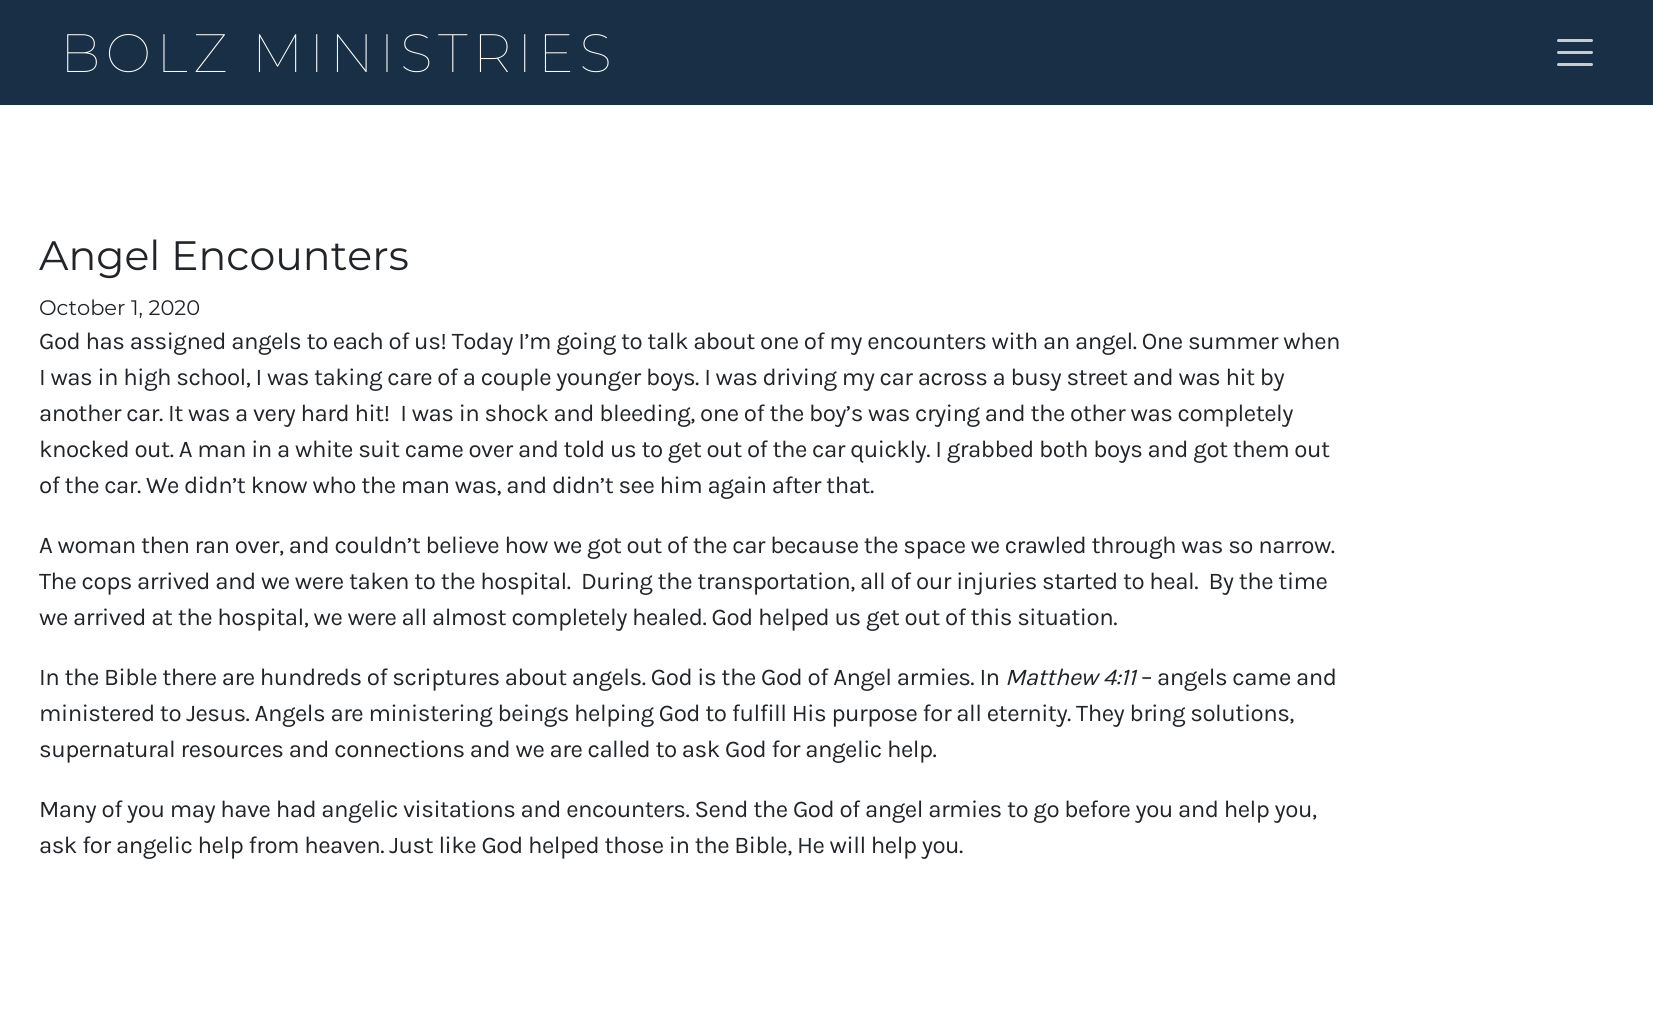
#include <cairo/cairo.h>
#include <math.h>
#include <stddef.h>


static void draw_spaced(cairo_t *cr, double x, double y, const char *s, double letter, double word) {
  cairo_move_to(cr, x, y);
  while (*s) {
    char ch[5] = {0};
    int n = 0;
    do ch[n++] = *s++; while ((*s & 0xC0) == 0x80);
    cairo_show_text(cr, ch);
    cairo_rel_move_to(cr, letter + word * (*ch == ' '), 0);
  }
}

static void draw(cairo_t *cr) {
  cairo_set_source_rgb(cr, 1, 1, 1);
  cairo_paint(cr);
  cairo_set_source_rgb(cr, 24 / 255.0, 47 / 255.0, 69 / 255.0);
  cairo_rectangle(cr, 0, 0, 1653, 105);
  cairo_fill(cr);
  cairo_new_path(cr);
  cairo_move_to(cr, 1558.5, 40.5);
  cairo_line_to(cr, 1591.5, 40.5);
  cairo_move_to(cr, 1558.5, 52.5);
  cairo_line_to(cr, 1591.5, 52.5);
  cairo_move_to(cr, 1558.5, 64.5);
  cairo_line_to(cr, 1591.5, 64.5);
  cairo_set_source_rgb(cr, 197 / 255.0, 203 / 255.0, 209 / 255.0);
  cairo_set_line_width(cr, 3);
  cairo_set_line_cap(cr, CAIRO_LINE_CAP_ROUND);
  cairo_stroke(cr);
  cairo_select_font_face(cr, "Montserrat Thin", CAIRO_FONT_SLANT_NORMAL, CAIRO_FONT_WEIGHT_NORMAL);
  cairo_set_font_size(cr, 54);
  cairo_set_source_rgb(cr, 1, 1, 1);
  draw_spaced(cr, 60, 72, "BOLZ MINISTRIES", 5.4, 0);
  cairo_select_font_face(cr, "Montserrat", CAIRO_FONT_SLANT_NORMAL, CAIRO_FONT_WEIGHT_NORMAL);
  cairo_set_font_size(cr, 41.1);
  cairo_set_source_rgb(cr, 33 / 255.0, 37 / 255.0, 41 / 255.0);
  cairo_move_to(cr, 39, 270);
  cairo_show_text(cr, "Angel Encounters");
  cairo_set_font_size(cr, 21);
  cairo_move_to(cr, 39, 315);
  cairo_show_text(cr, "October 1, 2020");
  cairo_select_font_face(cr, "Karla", CAIRO_FONT_SLANT_NORMAL, CAIRO_FONT_WEIGHT_NORMAL);
  cairo_set_font_size(cr, 24);
  draw_spaced(cr, 39, 349, "God has assigned angels to each of us! Today I’m going to talk about one of my encounters with an angel. One summer when", -0.48, 0);
  draw_spaced(cr, 39, 385, "I was in high school, I was taking care of a couple younger boys. I was driving my car across a busy street and was hit by", -0.48, 0);
  draw_spaced(cr, 39, 421, "another car. It was a very hard hit!  I was in shock and bleeding, one of the boy’s was crying and the other was completely", -0.48, 0);
  draw_spaced(cr, 39, 457, "knocked out. A man in a white suit came over and told us to get out of the car quickly. I grabbed both boys and got them out", -0.48, 0);
  draw_spaced(cr, 39, 493, "of the car. We didn’t know who the man was, and didn’t see him again after that.", -0.48, 0);
  draw_spaced(cr, 39, 553, "A woman then ran over, and couldn’t believe how we got out of the car because the space we crawled through was so narrow.", -0.48, 0);
  draw_spaced(cr, 39, 589, "The cops arrived and we were taken to the hospital.  During the transportation, all of our injuries started to heal.  By the time", -0.48, 0);
  draw_spaced(cr, 39, 625, "we arrived at the hospital, we were all almost completely healed. God helped us get out of this situation.", -0.48, 0);
  draw_spaced(cr, 39, 685, "In the Bible there are hundreds of scriptures about angels. God is the God of Angel armies. In", -0.48, 0);
  cairo_select_font_face(cr, "Karla", CAIRO_FONT_SLANT_ITALIC, CAIRO_FONT_WEIGHT_NORMAL);
  draw_spaced(cr, 1005, 685, "Matthew 4:11", -0.48, 0);
  cairo_select_font_face(cr, "Karla", CAIRO_FONT_SLANT_NORMAL, CAIRO_FONT_WEIGHT_NORMAL);
  draw_spaced(cr, 1141, 685, "– angels came and", -0.48, 0);
  draw_spaced(cr, 39, 721, "ministered to Jesus. Angels are ministering beings helping God to fulfill His purpose for all eternity. They bring solutions,", -0.48, 0);
  draw_spaced(cr, 39, 757, "supernatural resources and connections and we are called to ask God for angelic help.", -0.48, 0);
  draw_spaced(cr, 39, 817, "Many of you may have had angelic visitations and encounters. Send the God of angel armies to go before you and help you,", -0.48, 0);
  draw_spaced(cr, 39, 853, "ask for angelic help from heaven. Just like God helped those in the Bible, He will help you.", -0.48, 0);
}

int main(void) {
  cairo_surface_t *surface = cairo_image_surface_create(CAIRO_FORMAT_RGB24, 1653, 1023);
  cairo_t *cr = cairo_create(surface);
  cairo_font_options_t *options = cairo_font_options_create();
  cairo_font_options_set_hint_metrics(options, CAIRO_HINT_METRICS_OFF);
  cairo_font_options_set_hint_style(options, CAIRO_HINT_STYLE_NONE);
  cairo_set_font_options(cr, options);
  cairo_set_miter_limit(cr, 4);
  draw(cr);
  cairo_surface_write_to_png(surface, "out.png");
  cairo_font_options_destroy(options);
  cairo_destroy(cr);
  cairo_surface_destroy(surface);
  return 0;
}
